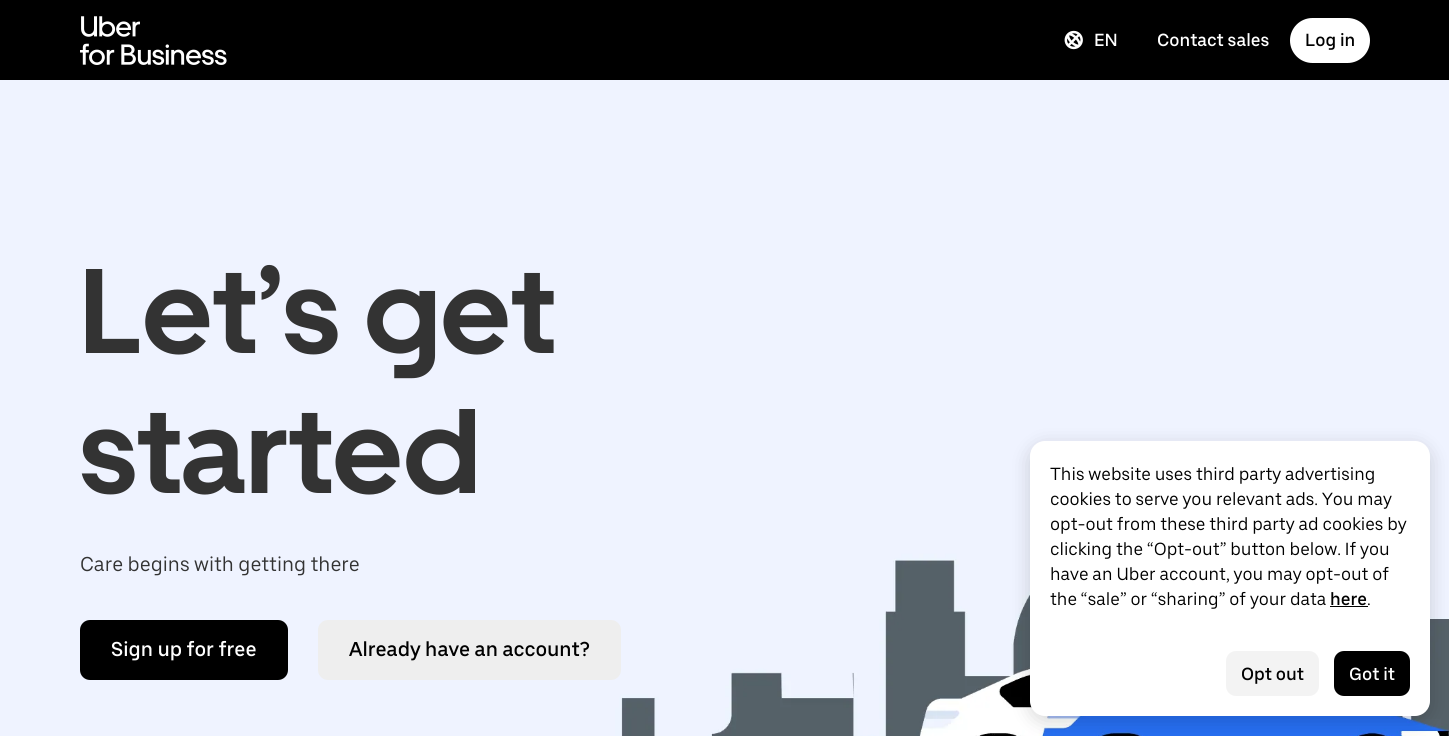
#include <cairo/cairo.h>
#include <math.h>
#include <stddef.h>


static void rounded_rect(cairo_t *cr, double x, double y, double w, double h, double r) {
  cairo_new_sub_path(cr);
  cairo_arc(cr, x + w - r, y + h - r, r, 0, M_PI / 2);
  cairo_arc(cr, x + r, y + h - r, r, M_PI / 2, M_PI);
  cairo_arc(cr, x + r, y + r, r, M_PI, 1.5 * M_PI);
  cairo_arc(cr, x + w - r, y + r, r, 1.5 * M_PI, 2 * M_PI);
  cairo_close_path(cr);
}

static void draw_shadow(cairo_t *cr, double x, double y, double w, double h, double r, double blur, double alpha) {
  cairo_push_group_with_content(cr, CAIRO_CONTENT_ALPHA);
  cairo_set_operator(cr, CAIRO_OPERATOR_SOURCE);
  for (int i = 15; i >= -15 && fmin(w, h) + blur * i / 3 > 0; i -= 2) {
    double e = blur * i / 6;
    cairo_set_source_rgba(cr, 0, 0, 0, alpha * erfc((i - 1) / 8.5) / 2);
    rounded_rect(cr, x - e, y - e, w + 2 * e, h + 2 * e, fmax(0, fmin(r + e + blur * .6, fmin(w, h) / 2 + e)));
    cairo_fill(cr);
  }
  cairo_pattern_t *soft = cairo_pop_group(cr);
  cairo_mask(cr, soft);
  cairo_pattern_destroy(soft);
}

static void draw_image(cairo_t *cr, const char *path, double x, double y, double w, double h) {
  cairo_surface_t *image = cairo_image_surface_create_from_png(path);
  cairo_save(cr);
  cairo_set_source_surface(cr, image, x, y);
  cairo_rectangle(cr, x, y, w, h);
  cairo_fill(cr);
  cairo_restore(cr);
  cairo_surface_destroy(image);
}

static void draw(cairo_t *cr) {
  cairo_set_source_rgb(cr, 1, 1, 1);
  cairo_paint(cr);
  cairo_set_source_rgb(cr, 0, 0, 0);
  cairo_rectangle(cr, 0, 0, 1449, 80);
  cairo_fill(cr);
  draw_image(cr, "images/1.png", 80, 16, 147, 49);
  draw_image(cr, "images/2.png", 1064, 30, 19, 20);
  cairo_set_source_rgb(cr, 1, 1, 1);
  rounded_rect(cr, 1290, 18, 80, 45, 22.5);
  cairo_fill(cr);
  draw_image(cr, "images/3.png", 0, 80, 1449, 656);
  cairo_set_source_rgb(cr, 0, 0, 0);
  rounded_rect(cr, 80, 620, 208, 60, 10);
  cairo_fill(cr);
  cairo_set_source_rgb(cr, 238 / 255.0, 238 / 255.0, 238 / 255.0);
  rounded_rect(cr, 318, 620, 303, 60, 10);
  cairo_fill(cr);
  cairo_set_source_rgb(cr, 0, 0, 0);
  draw_shadow(cr, 1030, 446, 400, 275, 15, 10, 0.16);
  cairo_set_source_rgb(cr, 1, 1, 1);
  rounded_rect(cr, 1030, 441, 400, 275, 15);
  cairo_fill(cr);
  cairo_set_source_rgb(cr, 0, 0, 0);
  cairo_rectangle(cr, 1330, 606, 38, 1);
  cairo_fill(cr);
  cairo_set_source_rgb(cr, 243 / 255.0, 243 / 255.0, 243 / 255.0);
  rounded_rect(cr, 1226, 651, 93, 45, 10);
  cairo_fill(cr);
  cairo_set_source_rgb(cr, 0, 0, 0);
  rounded_rect(cr, 1334, 651, 76, 45, 10);
  cairo_fill(cr);
  cairo_select_font_face(cr, "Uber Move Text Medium", CAIRO_FONT_SLANT_NORMAL, CAIRO_FONT_WEIGHT_NORMAL);
  cairo_set_font_size(cr, 17.5);
  cairo_set_source_rgb(cr, 1, 1, 1);
  cairo_move_to(cr, 1094, 46);
  cairo_show_text(cr, "EN");
  cairo_move_to(cr, 1157, 46);
  cairo_show_text(cr, "Contact sales");
  cairo_set_source_rgb(cr, 0, 0, 0);
  cairo_move_to(cr, 1305, 46);
  cairo_show_text(cr, "Log in");
  cairo_select_font_face(cr, "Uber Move", CAIRO_FONT_SLANT_NORMAL, CAIRO_FONT_WEIGHT_BOLD);
  cairo_set_font_size(cr, 120);
  cairo_set_source_rgb(cr, 51 / 255.0, 51 / 255.0, 51 / 255.0);
  cairo_move_to(cr, 80, 353);
  cairo_show_text(cr, "Let’s get");
  cairo_move_to(cr, 80, 493);
  cairo_show_text(cr, "started");
  cairo_select_font_face(cr, "Uber Move Text", CAIRO_FONT_SLANT_NORMAL, CAIRO_FONT_WEIGHT_NORMAL);
  cairo_set_font_size(cr, 20);
  cairo_move_to(cr, 80, 571);
  cairo_show_text(cr, "Care begins with getting there");
  cairo_select_font_face(cr, "Uber Move Text Medium", CAIRO_FONT_SLANT_NORMAL, CAIRO_FONT_WEIGHT_NORMAL);
  cairo_set_source_rgb(cr, 1, 1, 1);
  cairo_move_to(cr, 111, 656);
  cairo_show_text(cr, "Sign up for free");
  cairo_set_source_rgb(cr, 0, 0, 0);
  cairo_move_to(cr, 349, 656);
  cairo_show_text(cr, "Already have an account?");
  cairo_select_font_face(cr, "Uber Move Text", CAIRO_FONT_SLANT_NORMAL, CAIRO_FONT_WEIGHT_NORMAL);
  cairo_set_font_size(cr, 17.5);
  cairo_move_to(cr, 1050, 480);
  cairo_show_text(cr, "This website uses third party advertising");
  cairo_move_to(cr, 1050, 505);
  cairo_show_text(cr, "cookies to serve you relevant ads. You may");
  cairo_move_to(cr, 1050, 530);
  cairo_show_text(cr, "opt-out from these third party ad cookies by");
  cairo_move_to(cr, 1050, 555);
  cairo_show_text(cr, "clicking the “Opt-out” button below. If you");
  cairo_move_to(cr, 1050, 580);
  cairo_show_text(cr, "have an Uber account, you may opt-out of");
  cairo_move_to(cr, 1050, 605);
  cairo_show_text(cr, "the “sale” or “sharing” of your data");
  cairo_select_font_face(cr, "Uber Move Text Medium", CAIRO_FONT_SLANT_NORMAL, CAIRO_FONT_WEIGHT_NORMAL);
  cairo_move_to(cr, 1330, 605);
  cairo_show_text(cr, "here");
  cairo_select_font_face(cr, "Uber Move Text", CAIRO_FONT_SLANT_NORMAL, CAIRO_FONT_WEIGHT_NORMAL);
  cairo_move_to(cr, 1367, 605);
  cairo_show_text(cr, ".");
  cairo_select_font_face(cr, "Uber Move Text Medium", CAIRO_FONT_SLANT_NORMAL, CAIRO_FONT_WEIGHT_NORMAL);
  cairo_move_to(cr, 1241, 680);
  cairo_show_text(cr, "Opt out");
  cairo_set_source_rgb(cr, 1, 1, 1);
  cairo_move_to(cr, 1349, 680);
  cairo_show_text(cr, "Got it");
}

int main(void) {
  cairo_surface_t *surface = cairo_image_surface_create(CAIRO_FORMAT_RGB24, 1449, 736);
  cairo_t *cr = cairo_create(surface);
  cairo_font_options_t *options = cairo_font_options_create();
  cairo_font_options_set_hint_metrics(options, CAIRO_HINT_METRICS_OFF);
  cairo_font_options_set_hint_style(options, CAIRO_HINT_STYLE_NONE);
  cairo_set_font_options(cr, options);
  cairo_set_miter_limit(cr, 4);
  draw(cr);
  cairo_surface_write_to_png(surface, "out.png");
  cairo_font_options_destroy(options);
  cairo_destroy(cr);
  cairo_surface_destroy(surface);
  return 0;
}
